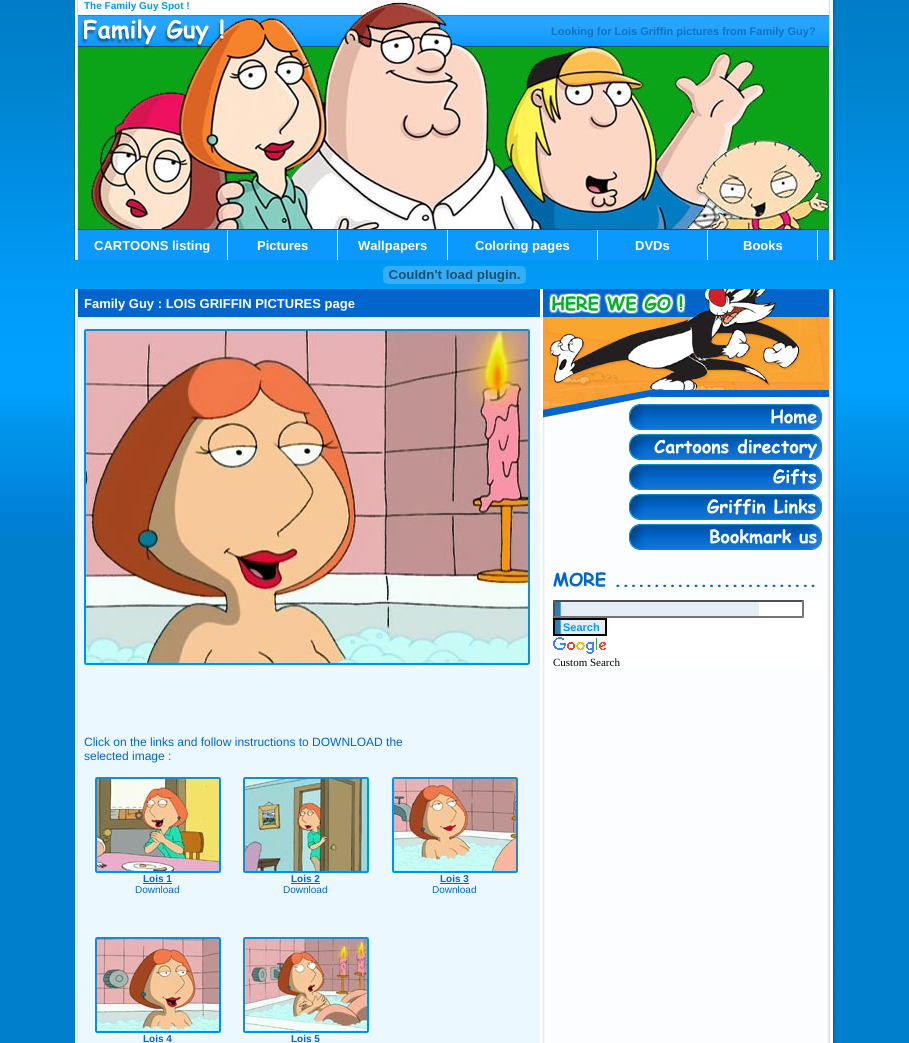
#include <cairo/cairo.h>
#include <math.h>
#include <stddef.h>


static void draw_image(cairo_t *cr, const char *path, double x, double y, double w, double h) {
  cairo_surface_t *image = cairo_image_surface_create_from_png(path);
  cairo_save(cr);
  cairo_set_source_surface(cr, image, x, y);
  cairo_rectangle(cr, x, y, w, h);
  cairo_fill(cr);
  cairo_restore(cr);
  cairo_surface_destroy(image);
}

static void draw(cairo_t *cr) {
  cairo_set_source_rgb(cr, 0, 127 / 255.0, 204 / 255.0);
  cairo_paint(cr);
  draw_image(cr, "images/1.png", 0, 0, 909, 536);
  draw_image(cr, "images/2.png", 74, 0, 762, 15);
  draw_image(cr, "images/3.png", 74, 15, 762, 32);
  draw_image(cr, "images/4.png", 74, 47, 762, 183);
  draw_image(cr, "images/5.png", 74, 230, 762, 30);
  cairo_set_source_rgb(cr, 11 / 255.0, 153 / 255.0, 1);
  cairo_rectangle(cr, 209, 230, 18, 30);
  cairo_fill(cr);
  cairo_set_source_rgb(cr, 1, 1, 1);
  cairo_rectangle(cr, 227, 230, 1, 30);
  cairo_fill(cr);
  cairo_set_source_rgb(cr, 11 / 255.0, 153 / 255.0, 1);
  cairo_rectangle(cr, 228, 230, 109, 30);
  cairo_fill(cr);
  cairo_set_source_rgb(cr, 1, 1, 1);
  cairo_rectangle(cr, 337, 230, 1, 30);
  cairo_fill(cr);
  cairo_set_source_rgb(cr, 11 / 255.0, 153 / 255.0, 1);
  cairo_rectangle(cr, 338, 230, 26, 30);
  cairo_fill(cr);
  cairo_set_source_rgb(cr, 1, 1, 1);
  cairo_rectangle(cr, 447, 230, 1, 30);
  cairo_fill(cr);
  cairo_rectangle(cr, 597, 230, 1, 30);
  cairo_fill(cr);
  cairo_rectangle(cr, 707, 230, 1, 30);
  cairo_fill(cr);
  cairo_rectangle(cr, 817, 230, 1, 30);
  cairo_fill(cr);
  draw_image(cr, "images/6.png", 383, 266, 143, 18);
  draw_image(cr, "images/7.png", 74, 317, 466, 726);
  draw_image(cr, "images/8.png", 74, 289, 466, 28);
  draw_image(cr, "images/9.png", 84, 329, 446, 336);
  draw_image(cr, "images/10.png", 95, 777, 126, 96);
  cairo_set_source_rgb(cr, 0, 102 / 255.0, 204 / 255.0);
  cairo_rectangle(cr, 143, 883, 29, 1);
  cairo_fill(cr);
  draw_image(cr, "images/11.png", 243, 777, 126, 96);
  cairo_rectangle(cr, 291, 883, 29, 1);
  cairo_fill(cr);
  draw_image(cr, "images/12.png", 392, 777, 126, 96);
  cairo_rectangle(cr, 440, 883, 29, 1);
  cairo_fill(cr);
  draw_image(cr, "images/13.png", 95, 937, 126, 96);
  draw_image(cr, "images/14.png", 243, 937, 126, 96);
  draw_image(cr, "images/15.png", 540, 289, 296, 754);
  draw_image(cr, "images/16.png", 543, 289, 293, 115);
  draw_image(cr, "images/17.png", 543, 404, 69, 14);
  draw_image(cr, "images/18.png", 629, 404, 193, 26);
  draw_image(cr, "images/19.png", 629, 434, 193, 26);
  draw_image(cr, "images/20.png", 629, 464, 193, 26);
  draw_image(cr, "images/21.png", 629, 494, 193, 26);
  draw_image(cr, "images/22.png", 629, 524, 193, 26);
  draw_image(cr, "images/23.png", 553, 572, 262, 15);
  cairo_set_source_rgb(cr, 1, 1, 1);
  cairo_rectangle(cr, 553, 600, 270, 68);
  cairo_fill(cr);
  draw_image(cr, "images/24.png", 555, 602, 204, 14);
  cairo_set_source_rgb(cr, 79 / 255.0, 79 / 255.0, 79 / 255.0);
  cairo_new_path(cr);
  cairo_move_to(cr, 553, 600);
  cairo_line_to(cr, 804, 600);
  cairo_line_to(cr, 802, 602);
  cairo_line_to(cr, 555, 602);
  cairo_close_path(cr);
  cairo_fill(cr);
  cairo_set_source_rgb(cr, 118 / 255.0, 118 / 255.0, 118 / 255.0);
  cairo_new_path(cr);
  cairo_move_to(cr, 804, 600);
  cairo_line_to(cr, 804, 618);
  cairo_line_to(cr, 802, 616);
  cairo_line_to(cr, 802, 602);
  cairo_close_path(cr);
  cairo_fill(cr);
  cairo_new_path(cr);
  cairo_move_to(cr, 804, 618);
  cairo_line_to(cr, 553, 618);
  cairo_line_to(cr, 555, 616);
  cairo_line_to(cr, 802, 616);
  cairo_close_path(cr);
  cairo_fill(cr);
  cairo_set_source_rgb(cr, 79 / 255.0, 79 / 255.0, 79 / 255.0);
  cairo_new_path(cr);
  cairo_move_to(cr, 553, 618);
  cairo_line_to(cr, 553, 600);
  cairo_line_to(cr, 555, 602);
  cairo_line_to(cr, 555, 616);
  cairo_close_path(cr);
  cairo_fill(cr);
  draw_image(cr, "images/25.png", 555, 620, 50, 14);
  cairo_rectangle(cr, 554, 619, 52, 16);
  cairo_set_source_rgb(cr, 0, 0, 0);
  cairo_stroke(cr);
  draw_image(cr, "images/26.png", 553, 637, 53, 17);
  cairo_select_font_face(cr, "Liberation Sans", CAIRO_FONT_SLANT_NORMAL, CAIRO_FONT_WEIGHT_BOLD);
  cairo_set_font_size(cr, 10);
  cairo_set_source_rgb(cr, 0, 153 / 255.0, 1);
  cairo_move_to(cr, 84, 9);
  cairo_show_text(cr, "The Family Guy Spot !");
  cairo_set_font_size(cr, 11);
  cairo_set_source_rgb(cr, 17 / 255.0, 115 / 255.0, 185 / 255.0);
  cairo_move_to(cr, 551, 35);
  cairo_show_text(cr, "Looking for Lois Griffin pictures from Family Guy?");
  cairo_set_font_size(cr, 13);
  cairo_set_source_rgb(cr, 1, 1, 1);
  cairo_move_to(cr, 94, 250);
  cairo_show_text(cr, "CARTOONS listing");
  cairo_move_to(cr, 257, 250);
  cairo_show_text(cr, "Pictures");
  cairo_move_to(cr, 358, 250);
  cairo_show_text(cr, "Wallpapers");
  cairo_move_to(cr, 475, 250);
  cairo_show_text(cr, "Coloring pages");
  cairo_move_to(cr, 635, 250);
  cairo_show_text(cr, "DVDs");
  cairo_move_to(cr, 743, 250);
  cairo_show_text(cr, "Books");
  cairo_move_to(cr, 84, 308);
  cairo_show_text(cr, "Family Guy : LOIS GRIFFIN PICTURES page");
  cairo_select_font_face(cr, "Liberation Sans", CAIRO_FONT_SLANT_NORMAL, CAIRO_FONT_WEIGHT_NORMAL);
  cairo_set_font_size(cr, 12);
  cairo_set_source_rgb(cr, 0, 102 / 255.0, 204 / 255.0);
  cairo_move_to(cr, 84, 746);
  cairo_show_text(cr, "Click on the links and follow instructions to DOWNLOAD the");
  cairo_move_to(cr, 84, 760);
  cairo_show_text(cr, "selected image :");
  cairo_select_font_face(cr, "Liberation Sans", CAIRO_FONT_SLANT_NORMAL, CAIRO_FONT_WEIGHT_BOLD);
  cairo_set_font_size(cr, 10);
  cairo_move_to(cr, 143, 882);
  cairo_show_text(cr, "Lois 1");
  cairo_select_font_face(cr, "Liberation Sans", CAIRO_FONT_SLANT_NORMAL, CAIRO_FONT_WEIGHT_NORMAL);
  cairo_move_to(cr, 135, 893);
  cairo_show_text(cr, "Download");
  cairo_select_font_face(cr, "Liberation Sans", CAIRO_FONT_SLANT_NORMAL, CAIRO_FONT_WEIGHT_BOLD);
  cairo_move_to(cr, 291, 882);
  cairo_show_text(cr, "Lois 2");
  cairo_select_font_face(cr, "Liberation Sans", CAIRO_FONT_SLANT_NORMAL, CAIRO_FONT_WEIGHT_NORMAL);
  cairo_move_to(cr, 283, 893);
  cairo_show_text(cr, "Download");
  cairo_select_font_face(cr, "Liberation Sans", CAIRO_FONT_SLANT_NORMAL, CAIRO_FONT_WEIGHT_BOLD);
  cairo_move_to(cr, 440, 882);
  cairo_show_text(cr, "Lois 3");
  cairo_select_font_face(cr, "Liberation Sans", CAIRO_FONT_SLANT_NORMAL, CAIRO_FONT_WEIGHT_NORMAL);
  cairo_move_to(cr, 432, 893);
  cairo_show_text(cr, "Download");
  cairo_select_font_face(cr, "Liberation Sans", CAIRO_FONT_SLANT_NORMAL, CAIRO_FONT_WEIGHT_BOLD);
  cairo_move_to(cr, 143, 1042);
  cairo_show_text(cr, "Lois 4");
  cairo_move_to(cr, 291, 1042);
  cairo_show_text(cr, "Lois 5");
  cairo_set_font_size(cr, 11);
  cairo_set_source_rgb(cr, 0, 153 / 255.0, 1);
  cairo_move_to(cr, 563, 631);
  cairo_show_text(cr, "Search");
  cairo_select_font_face(cr, "Liberation Serif", CAIRO_FONT_SLANT_NORMAL, CAIRO_FONT_WEIGHT_NORMAL);
  cairo_set_source_rgb(cr, 0, 0, 0);
  cairo_move_to(cr, 553, 666);
  cairo_show_text(cr, "Custom Search");
}

int main(void) {
  cairo_surface_t *surface = cairo_image_surface_create(CAIRO_FORMAT_RGB24, 909, 1043);
  cairo_t *cr = cairo_create(surface);
  cairo_font_options_t *options = cairo_font_options_create();
  cairo_font_options_set_hint_metrics(options, CAIRO_HINT_METRICS_OFF);
  cairo_font_options_set_hint_style(options, CAIRO_HINT_STYLE_NONE);
  cairo_set_font_options(cr, options);
  cairo_set_miter_limit(cr, 4);
  draw(cr);
  cairo_surface_write_to_png(surface, "out.png");
  cairo_font_options_destroy(options);
  cairo_destroy(cr);
  cairo_surface_destroy(surface);
  return 0;
}
